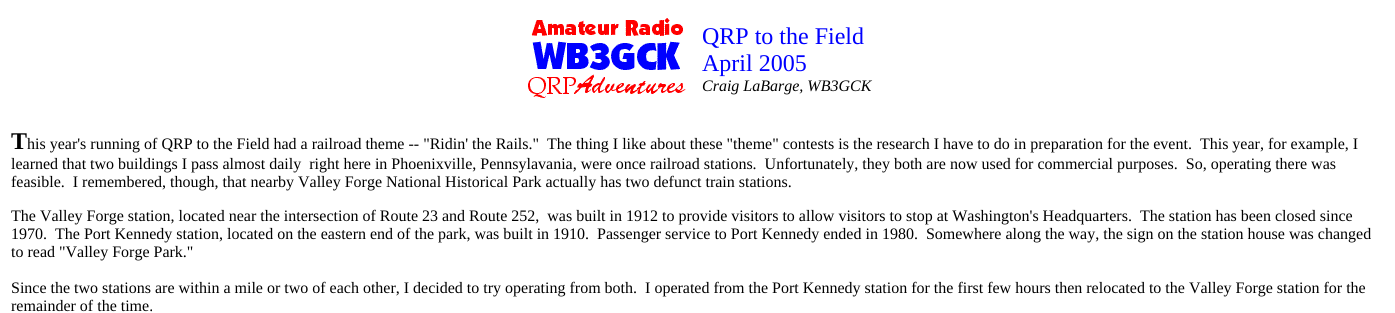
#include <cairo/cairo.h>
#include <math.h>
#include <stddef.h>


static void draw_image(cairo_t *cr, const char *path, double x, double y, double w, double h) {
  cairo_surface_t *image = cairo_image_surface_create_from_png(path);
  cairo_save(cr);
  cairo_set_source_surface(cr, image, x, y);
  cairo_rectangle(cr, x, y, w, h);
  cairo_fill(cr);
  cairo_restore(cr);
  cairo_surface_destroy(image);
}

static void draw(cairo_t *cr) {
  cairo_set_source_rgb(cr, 1, 1, 1);
  cairo_paint(cr);
  draw_image(cr, "images/1.png", 528, 18, 158, 80);
  cairo_select_font_face(cr, "Liberation Serif", CAIRO_FONT_SLANT_NORMAL, CAIRO_FONT_WEIGHT_NORMAL);
  cairo_set_font_size(cr, 24);
  cairo_set_source_rgb(cr, 0, 0, 1);
  cairo_move_to(cr, 702, 44);
  cairo_show_text(cr, "QRP to the Field");
  cairo_move_to(cr, 702, 71);
  cairo_show_text(cr, "April 2005");
  cairo_select_font_face(cr, "Liberation Serif", CAIRO_FONT_SLANT_ITALIC, CAIRO_FONT_WEIGHT_NORMAL);
  cairo_set_font_size(cr, 16);
  cairo_set_source_rgb(cr, 0, 0, 0);
  cairo_move_to(cr, 702, 91);
  cairo_show_text(cr, "Craig LaBarge, WB3GCK");
  cairo_select_font_face(cr, "Liberation Serif", CAIRO_FONT_SLANT_NORMAL, CAIRO_FONT_WEIGHT_BOLD);
  cairo_set_font_size(cr, 24);
  cairo_move_to(cr, 11, 149);
  cairo_show_text(cr, "T");
  cairo_select_font_face(cr, "Liberation Serif", CAIRO_FONT_SLANT_NORMAL, CAIRO_FONT_WEIGHT_NORMAL);
  cairo_set_font_size(cr, 16);
  cairo_move_to(cr, 27, 149);
  cairo_show_text(cr, "his year's running of QRP to the Field had a railroad theme -- \"Ridin' the Rails.\"  The thing I like about these \"theme\" contests is the research I have to do in preparation for the event.  This year, for example, I");
  cairo_move_to(cr, 11, 169);
  cairo_show_text(cr, "learned that two buildings I pass almost daily  right here in Phoenixville, Pennsylavania, were once railroad stations.  Unfortunately, they both are now used for commercial purposes.  So, operating there was");
  cairo_move_to(cr, 11, 187);
  cairo_show_text(cr, "feasible.  I remembered, though, that nearby Valley Forge National Historical Park actually has two defunct train stations.");
  cairo_move_to(cr, 11, 221);
  cairo_show_text(cr, "The Valley Forge station, located near the intersection of Route 23 and Route 252,  was built in 1912 to provide visitors to allow visitors to stop at Washington's Headquarters.  The station has been closed since");
  cairo_move_to(cr, 11, 239);
  cairo_show_text(cr, "1970.  The Port Kennedy station, located on the eastern end of the park, was built in 1910.  Passenger service to Port Kennedy ended in 1980.  Somewhere along the way, the sign on the station house was changed");
  cairo_move_to(cr, 11, 257);
  cairo_show_text(cr, "to read \"Valley Forge Park.\"");
  cairo_move_to(cr, 11, 293);
  cairo_show_text(cr, "Since the two stations are within a mile or two of each other, I decided to try operating from both.  I operated from the Port Kennedy station for the first few hours then relocated to the Valley Forge station for the");
  cairo_move_to(cr, 11, 311);
  cairo_show_text(cr, "remainder of the time.");
}

int main(void) {
  cairo_surface_t *surface = cairo_image_surface_create(CAIRO_FORMAT_RGB24, 1395, 313);
  cairo_t *cr = cairo_create(surface);
  cairo_font_options_t *options = cairo_font_options_create();
  cairo_font_options_set_hint_metrics(options, CAIRO_HINT_METRICS_OFF);
  cairo_font_options_set_hint_style(options, CAIRO_HINT_STYLE_NONE);
  cairo_set_font_options(cr, options);
  cairo_set_miter_limit(cr, 4);
  draw(cr);
  cairo_surface_write_to_png(surface, "out.png");
  cairo_font_options_destroy(options);
  cairo_destroy(cr);
  cairo_surface_destroy(surface);
  return 0;
}
